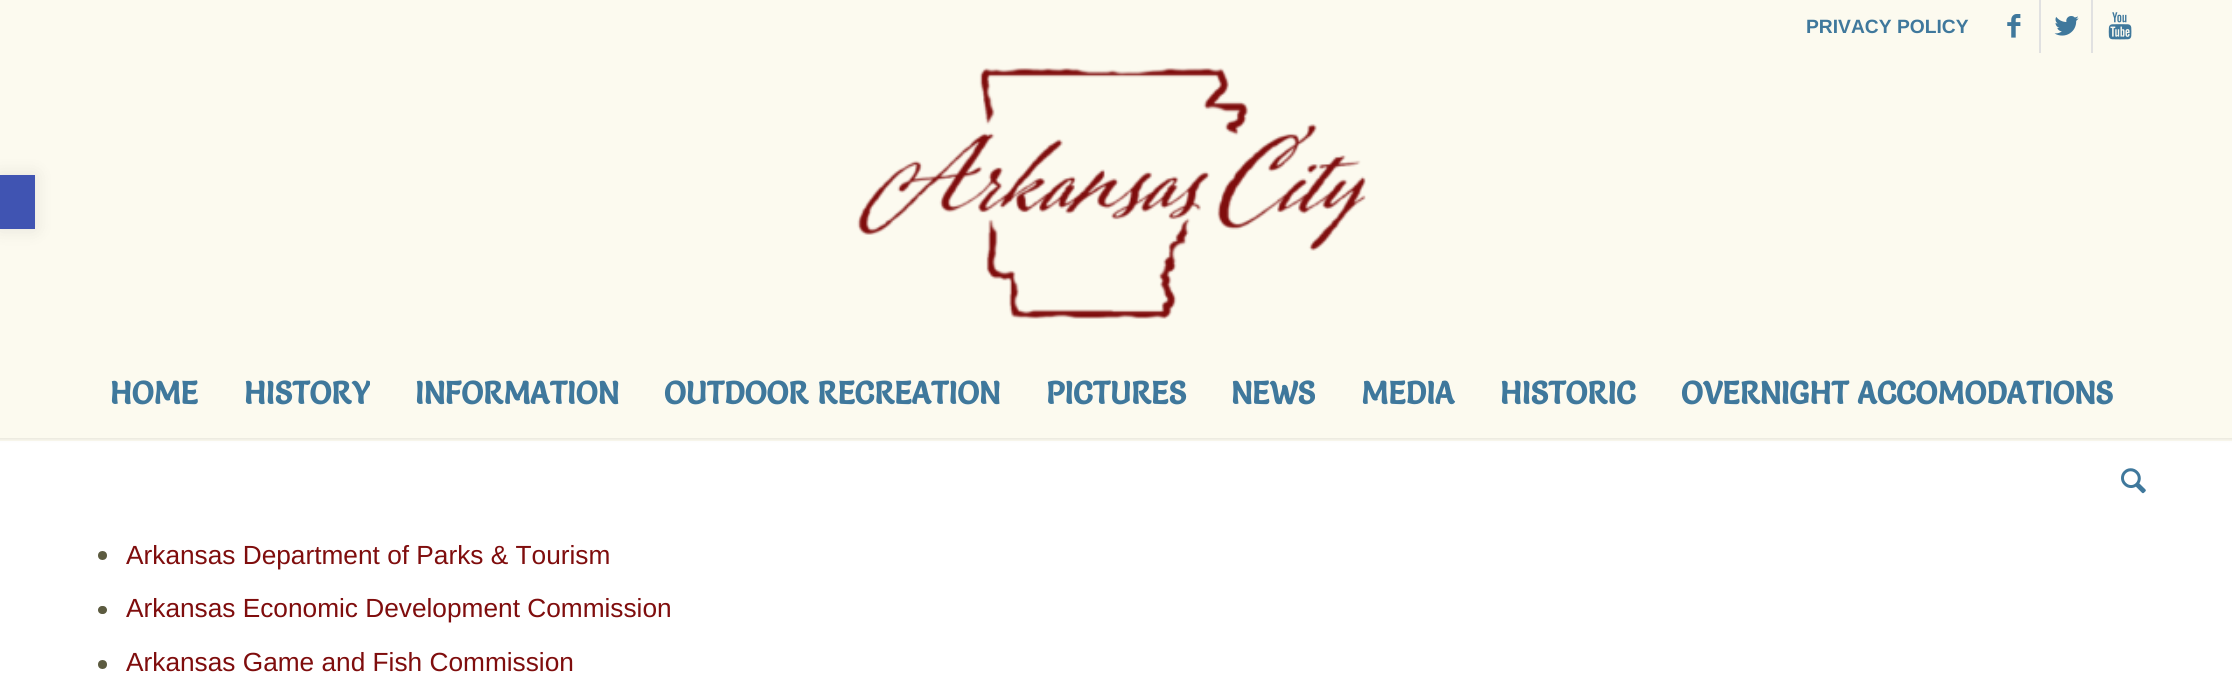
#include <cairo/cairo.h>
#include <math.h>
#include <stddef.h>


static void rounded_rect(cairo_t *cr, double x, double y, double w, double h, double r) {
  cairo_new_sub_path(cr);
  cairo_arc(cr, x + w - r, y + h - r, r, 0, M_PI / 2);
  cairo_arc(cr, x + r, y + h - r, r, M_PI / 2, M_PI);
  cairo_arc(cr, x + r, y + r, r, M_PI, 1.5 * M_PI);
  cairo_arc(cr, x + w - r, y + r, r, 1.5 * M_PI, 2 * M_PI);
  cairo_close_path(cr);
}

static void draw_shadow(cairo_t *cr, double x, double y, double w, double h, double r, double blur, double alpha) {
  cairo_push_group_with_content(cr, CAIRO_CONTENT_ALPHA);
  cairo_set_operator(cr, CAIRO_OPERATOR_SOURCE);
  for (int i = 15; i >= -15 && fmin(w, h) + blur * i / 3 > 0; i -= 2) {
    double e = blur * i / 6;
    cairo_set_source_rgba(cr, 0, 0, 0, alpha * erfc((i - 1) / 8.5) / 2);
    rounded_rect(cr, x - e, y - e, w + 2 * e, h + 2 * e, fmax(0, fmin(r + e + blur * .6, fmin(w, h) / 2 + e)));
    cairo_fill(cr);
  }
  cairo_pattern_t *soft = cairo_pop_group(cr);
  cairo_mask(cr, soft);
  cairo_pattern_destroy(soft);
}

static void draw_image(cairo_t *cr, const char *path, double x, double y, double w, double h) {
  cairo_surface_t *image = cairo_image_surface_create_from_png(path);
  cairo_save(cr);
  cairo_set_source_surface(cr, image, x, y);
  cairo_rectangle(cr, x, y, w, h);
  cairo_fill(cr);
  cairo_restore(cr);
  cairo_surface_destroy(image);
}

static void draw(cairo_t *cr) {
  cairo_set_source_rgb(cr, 252 / 255.0, 250 / 255.0, 239 / 255.0);
  cairo_paint(cr);
  cairo_set_source_rgb(cr, 1, 1, 1);
  cairo_rectangle(cr, 0, 441, 2232, 246);
  cairo_fill(cr);
  cairo_set_source_rgb(cr, 0, 0, 0);
  draw_shadow(cr, -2, -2, 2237, 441, 0, 2, 0.1);
  cairo_set_source_rgb(cr, 252 / 255.0, 250 / 255.0, 239 / 255.0);
  cairo_rectangle(cr, 0, 0, 2232, 438);
  cairo_fill(cr);
  cairo_set_source_rgb(cr, 0, 0, 0);
  draw_shadow(cr, 0, 175, 35, 54, 0, 9, 0.1);
  cairo_set_source_rgb(cr, 64 / 255.0, 84 / 255.0, 178 / 255.0);
  cairo_rectangle(cr, 0, 175, 35, 54);
  cairo_fill(cr);
  cairo_set_source_rgb(cr, 225 / 255.0, 225 / 255.0, 225 / 255.0);
  cairo_rectangle(cr, 2039, 0, 2, 53);
  cairo_fill(cr);
  draw_image(cr, "images/1.png", 2007, 14, 14, 24);
  cairo_rectangle(cr, 2091, 0, 2, 53);
  cairo_fill(cr);
  draw_image(cr, "images/2.png", 2054, 16, 25, 20);
  draw_image(cr, "images/3.png", 2108, 12, 24, 28);
  draw_image(cr, "images/4.png", 857, 67, 509, 252);
  draw_image(cr, "images/5.png", 2121, 468, 25, 26);
  cairo_set_source_rgb(cr, 92 / 255.0, 91 / 255.0, 64 / 255.0);
  cairo_arc(cr, 102.5, 555.5, 4.5, 0, 2 * M_PI);
  cairo_fill(cr);
  rounded_rect(cr, 98, 606, 9, 8, 4);
  cairo_fill(cr);
  cairo_arc(cr, 102.5, 664.5, 4.5, 0, 2 * M_PI);
  cairo_fill(cr);
  cairo_select_font_face(cr, "Liberation Sans", CAIRO_FONT_SLANT_NORMAL, CAIRO_FONT_WEIGHT_BOLD);
  cairo_set_font_size(cr, 19.25);
  cairo_set_source_rgb(cr, 63 / 255.0, 120 / 255.0, 156 / 255.0);
  cairo_move_to(cr, 1806, 33);
  cairo_show_text(cr, "PRIVACY POLICY");
  cairo_select_font_face(cr, "Salsa", CAIRO_FONT_SLANT_NORMAL, CAIRO_FONT_WEIGHT_BOLD);
  cairo_set_font_size(cr, 31.5);
  cairo_move_to(cr, 110, 404);
  cairo_show_text(cr, "HOME");
  cairo_move_to(cr, 244, 404);
  cairo_show_text(cr, "HISTORY");
  cairo_move_to(cr, 415, 404);
  cairo_show_text(cr, "INFORMATION");
  cairo_move_to(cr, 664, 404);
  cairo_show_text(cr, "OUTDOOR RECREATION");
  cairo_move_to(cr, 1046, 404);
  cairo_show_text(cr, "PICTURES");
  cairo_move_to(cr, 1231, 404);
  cairo_show_text(cr, "NEWS");
  cairo_move_to(cr, 1361, 404);
  cairo_show_text(cr, "MEDIA");
  cairo_move_to(cr, 1500, 404);
  cairo_show_text(cr, "HISTORIC");
  cairo_move_to(cr, 1681, 404);
  cairo_show_text(cr, "OVERNIGHT ACCOMODATIONS");
  cairo_select_font_face(cr, "Liberation Sans", CAIRO_FONT_SLANT_NORMAL, CAIRO_FONT_WEIGHT_NORMAL);
  cairo_set_font_size(cr, 26.25);
  cairo_set_source_rgb(cr, 127 / 255.0, 13 / 255.0, 13 / 255.0);
  cairo_move_to(cr, 126, 564);
  cairo_show_text(cr, "Arkansas Department of Parks & Tourism");
  cairo_move_to(cr, 126, 617);
  cairo_show_text(cr, "Arkansas Economic Development Commission");
  cairo_move_to(cr, 126, 671);
  cairo_show_text(cr, "Arkansas Game and Fish Commission");
}

int main(void) {
  cairo_surface_t *surface = cairo_image_surface_create(CAIRO_FORMAT_RGB24, 2232, 687);
  cairo_t *cr = cairo_create(surface);
  cairo_font_options_t *options = cairo_font_options_create();
  cairo_font_options_set_hint_metrics(options, CAIRO_HINT_METRICS_OFF);
  cairo_font_options_set_hint_style(options, CAIRO_HINT_STYLE_NONE);
  cairo_set_font_options(cr, options);
  cairo_set_miter_limit(cr, 4);
  draw(cr);
  cairo_surface_write_to_png(surface, "out.png");
  cairo_font_options_destroy(options);
  cairo_destroy(cr);
  cairo_surface_destroy(surface);
  return 0;
}
